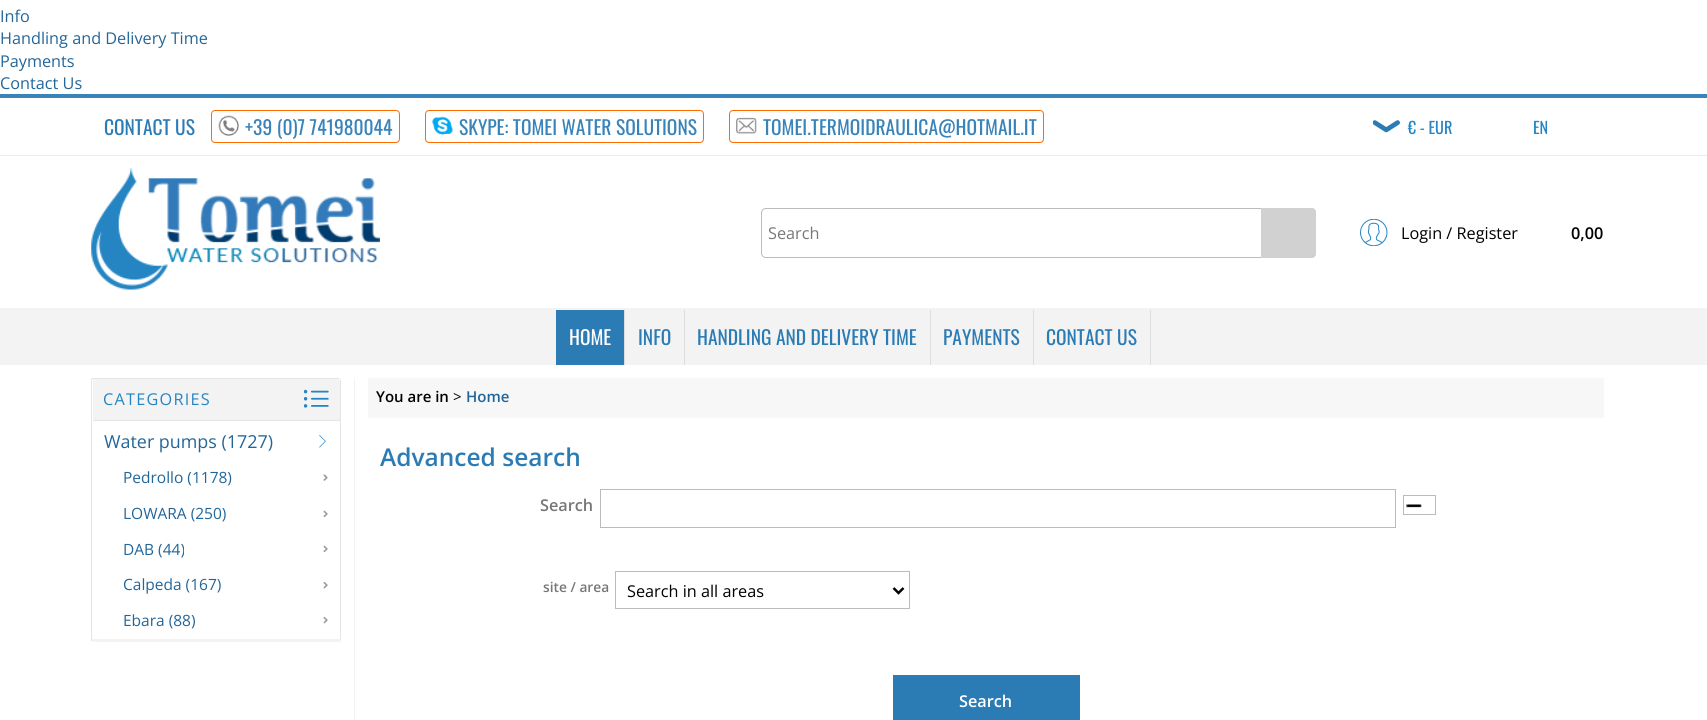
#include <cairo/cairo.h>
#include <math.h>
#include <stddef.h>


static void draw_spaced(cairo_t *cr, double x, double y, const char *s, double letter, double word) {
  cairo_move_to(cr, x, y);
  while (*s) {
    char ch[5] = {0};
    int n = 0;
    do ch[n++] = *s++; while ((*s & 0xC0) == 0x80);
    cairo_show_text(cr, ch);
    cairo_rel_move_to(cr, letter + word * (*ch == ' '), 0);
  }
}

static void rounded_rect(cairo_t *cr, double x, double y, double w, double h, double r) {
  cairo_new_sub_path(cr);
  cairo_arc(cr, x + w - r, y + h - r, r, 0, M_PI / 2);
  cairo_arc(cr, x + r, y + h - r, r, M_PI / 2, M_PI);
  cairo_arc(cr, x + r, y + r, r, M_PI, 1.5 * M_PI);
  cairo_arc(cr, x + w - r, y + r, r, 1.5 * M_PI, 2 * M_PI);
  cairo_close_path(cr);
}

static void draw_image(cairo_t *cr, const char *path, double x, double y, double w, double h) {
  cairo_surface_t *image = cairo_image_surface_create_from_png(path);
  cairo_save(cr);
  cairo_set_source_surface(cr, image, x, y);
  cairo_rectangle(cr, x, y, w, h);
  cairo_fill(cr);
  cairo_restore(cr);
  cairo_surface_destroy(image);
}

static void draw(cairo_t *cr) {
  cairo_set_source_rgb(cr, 1, 1, 1);
  cairo_paint(cr);
  cairo_set_source_rgb(cr, 56 / 255.0, 131 / 255.0, 185 / 255.0);
  cairo_rectangle(cr, 0, 94, 1707, 4);
  cairo_fill(cr);
  cairo_set_source_rgb(cr, 236 / 255.0, 234 / 255.0, 234 / 255.0);
  cairo_rectangle(cr, 0, 155, 1707, 1);
  cairo_fill(cr);
  rounded_rect(cr, 211.5, 110.5, 188, 32, 3.5);
  cairo_set_source_rgb(cr, 1, 108 / 255.0, 0);
  cairo_set_line_width(cr, 1);
  cairo_stroke(cr);
  draw_image(cr, "images/1.png", 218, 115, 21, 21);
  rounded_rect(cr, 425.5, 110.5, 278, 32, 3.5);
  cairo_stroke(cr);
  draw_image(cr, "images/2.png", 432, 116, 21, 19);
  rounded_rect(cr, 729.5, 110.5, 314, 32, 3.5);
  cairo_stroke(cr);
  draw_image(cr, "images/3.png", 736, 117, 21, 17);
  draw_image(cr, "images/4.png", 1373, 120, 27, 13);
  draw_image(cr, "images/5.png", 91, 168, 289, 122);
  rounded_rect(cr, 761.5, 208.5, 554, 49, 4.5);
  cairo_set_source_rgb(cr, 187 / 255.0, 187 / 255.0, 187 / 255.0);
  cairo_stroke(cr);
  cairo_set_source_rgb(cr, 209 / 255.0, 209 / 255.0, 209 / 255.0);
  cairo_new_path(cr);
  cairo_move_to(cr, 1261, 208);
  cairo_line_to(cr, 1311, 208);
  cairo_curve_to(cr, 1314, 208, 1316, 210, 1316, 213);
  cairo_line_to(cr, 1316, 253);
  cairo_curve_to(cr, 1316, 256, 1314, 258, 1311, 258);
  cairo_line_to(cr, 1261, 258);
  cairo_close_path(cr);
  cairo_fill(cr);
  draw_image(cr, "images/6.png", 1360, 219, 28, 27);
  cairo_set_source_rgb(cr, 243 / 255.0, 243 / 255.0, 243 / 255.0);
  cairo_rectangle(cr, 0, 308, 1707, 57);
  cairo_fill(cr);
  cairo_set_source_rgb(cr, 43 / 255.0, 123 / 255.0, 180 / 255.0);
  cairo_rectangle(cr, 556, 310, 68, 55);
  cairo_fill(cr);
  cairo_set_source_rgb(cr, 221 / 255.0, 221 / 255.0, 221 / 255.0);
  cairo_rectangle(cr, 624, 310, 1, 55);
  cairo_fill(cr);
  cairo_rectangle(cr, 684, 310, 1, 55);
  cairo_fill(cr);
  cairo_rectangle(cr, 930, 310, 1, 55);
  cairo_fill(cr);
  cairo_rectangle(cr, 1033, 310, 1, 55);
  cairo_fill(cr);
  cairo_rectangle(cr, 1150, 310, 1, 55);
  cairo_fill(cr);
  cairo_set_source_rgb(cr, 243 / 255.0, 243 / 255.0, 243 / 255.0);
  cairo_rectangle(cr, 354, 378, 1, 342);
  cairo_fill(cr);
  cairo_set_source_rgb(cr, 229 / 255.0, 229 / 255.0, 229 / 255.0);
  cairo_new_path(cr);
  cairo_move_to(cr, 94, 378);
  cairo_line_to(cr, 92, 378);
  cairo_line_to(cr, 93, 379);
  cairo_line_to(cr, 340, 379);
  cairo_line_to(cr, 339, 378);
  cairo_close_path(cr);
  cairo_fill(cr);
  cairo_new_path(cr);
  cairo_move_to(cr, 341, 641);
  cairo_line_to(cr, 341, 380);
  cairo_line_to(cr, 340, 379);
  cairo_line_to(cr, 340, 380);
  cairo_line_to(cr, 340, 639);
  cairo_close_path(cr);
  cairo_fill(cr);
  cairo_set_source_rgb(cr, 243 / 255.0, 243 / 255.0, 243 / 255.0);
  cairo_new_path(cr);
  cairo_move_to(cr, 341, 641);
  cairo_curve_to(cr, 340, 642, 340, 642, 339, 642);
  cairo_line_to(cr, 94, 642);
  cairo_line_to(cr, 92, 641);
  cairo_line_to(cr, 92, 639);
  cairo_line_to(cr, 340, 639);
  cairo_close_path(cr);
  cairo_fill(cr);
  cairo_set_source_rgb(cr, 229 / 255.0, 229 / 255.0, 229 / 255.0);
  cairo_new_path(cr);
  cairo_move_to(cr, 91, 379);
  cairo_line_to(cr, 92, 378);
  cairo_line_to(cr, 93, 379);
  cairo_line_to(cr, 92, 380);
  cairo_line_to(cr, 92, 639);
  cairo_line_to(cr, 92, 641);
  cairo_line_to(cr, 91, 641);
  cairo_close_path(cr);
  cairo_fill(cr);
  cairo_set_source_rgb(cr, 243 / 255.0, 243 / 255.0, 243 / 255.0);
  cairo_new_path(cr);
  cairo_move_to(cr, 95.5, 379);
  cairo_line_to(cr, 337.5, 379);
  cairo_curve_to(cr, 339, 379, 340, 380, 340, 381.5);
  cairo_line_to(cr, 340, 420);
  cairo_line_to(cr, 93, 420);
  cairo_line_to(cr, 93, 381.5);
  cairo_curve_to(cr, 93, 380, 94, 379, 95.5, 379);
  cairo_close_path(cr);
  cairo_fill(cr);
  draw_image(cr, "images/7.png", 304, 389, 25, 19);
  cairo_set_source_rgb(cr, 229 / 255.0, 229 / 255.0, 229 / 255.0);
  cairo_rectangle(cr, 93, 420, 247, 1);
  cairo_fill(cr);
  draw_image(cr, "images/8.png", 319, 435, 7, 13);
  draw_image(cr, "images/9.png", 323, 474, 5, 7);
  draw_image(cr, "images/10.png", 323, 510, 5, 7);
  draw_image(cr, "images/10.png", 323, 545, 5, 7);
  draw_image(cr, "images/11.png", 323, 582, 5, 7);
  draw_image(cr, "images/11.png", 323, 617, 5, 7);
  cairo_set_source_rgb(cr, 247 / 255.0, 247 / 255.0, 247 / 255.0);
  cairo_rectangle(cr, 368, 378, 1236, 40);
  cairo_fill(cr);
  cairo_rectangle(cr, 600.5, 489.5, 795, 38);
  cairo_set_source_rgb(cr, 187 / 255.0, 187 / 255.0, 187 / 255.0);
  cairo_stroke(cr);
  draw_image(cr, "images/12.png", 1406, 504, 16, 4);
  cairo_rectangle(cr, 1403.5, 495.5, 32, 19);
  cairo_stroke(cr);
  cairo_rectangle(cr, 615.5, 571.5, 294, 37);
  cairo_stroke(cr);
  cairo_new_path(cr);
  cairo_move_to(cr, 893.5, 588);
  cairo_line_to(cr, 898.5, 593);
  cairo_line_to(cr, 903.5, 588);
  cairo_set_source_rgb(cr, 0, 0, 0);
  cairo_set_line_width(cr, 2.5);
  cairo_stroke(cr);
  cairo_set_source_rgb(cr, 43 / 255.0, 123 / 255.0, 180 / 255.0);
  cairo_rectangle(cr, 893, 675, 187, 45);
  cairo_fill(cr);
  cairo_select_font_face(cr, "Open Sans", CAIRO_FONT_SLANT_NORMAL, CAIRO_FONT_WEIGHT_NORMAL);
  cairo_set_font_size(cr, 16.25);
  cairo_set_source_rgb(cr, 34 / 255.0, 102 / 255.0, 153 / 255.0);
  cairo_move_to(cr, 0, 22);
  cairo_show_text(cr, "Info");
  cairo_move_to(cr, 0, 44);
  cairo_show_text(cr, "Handling and Delivery Time");
  cairo_move_to(cr, 0, 67);
  cairo_show_text(cr, "Payments");
  cairo_move_to(cr, 0, 89);
  cairo_show_text(cr, "Contact Us");
  cairo_select_font_face(cr, "Oswald", CAIRO_FONT_SLANT_NORMAL, CAIRO_FONT_WEIGHT_NORMAL);
  cairo_set_font_size(cr, 19.5);
  cairo_set_source_rgb(cr, 43 / 255.0, 123 / 255.0, 180 / 255.0);
  cairo_move_to(cr, 104, 135);
  cairo_show_text(cr, "CONTACT US");
  cairo_set_source_rgb(cr, 56 / 255.0, 131 / 255.0, 185 / 255.0);
  cairo_move_to(cr, 245, 135);
  cairo_show_text(cr, "+39 (0)7 741980044");
  cairo_move_to(cr, 459, 135);
  cairo_show_text(cr, "SKYPE: TOMEI WATER SOLUTIONS");
  cairo_move_to(cr, 763, 135);
  cairo_show_text(cr, "TOMEI.TERMOIDRAULICA@HOTMAIL.IT");
  cairo_set_font_size(cr, 16.25);
  cairo_set_source_rgb(cr, 37 / 255.0, 133 / 255.0, 194 / 255.0);
  cairo_move_to(cr, 1408, 134);
  cairo_show_text(cr, "€ - EUR");
  cairo_move_to(cr, 1533, 134);
  cairo_show_text(cr, "EN");
  cairo_select_font_face(cr, "Open Sans", CAIRO_FONT_SLANT_NORMAL, CAIRO_FONT_WEIGHT_NORMAL);
  cairo_set_source_rgb(cr, 119 / 255.0, 119 / 255.0, 119 / 255.0);
  cairo_move_to(cr, 768, 239);
  cairo_show_text(cr, "Search");
  cairo_set_source_rgb(cr, 0, 0, 0);
  cairo_move_to(cr, 1401, 239);
  cairo_show_text(cr, "Login / Register");
  cairo_select_font_face(cr, "Open Sans SemiBold", CAIRO_FONT_SLANT_NORMAL, CAIRO_FONT_WEIGHT_NORMAL);
  cairo_move_to(cr, 1571, 239);
  cairo_show_text(cr, "0,00");
  cairo_select_font_face(cr, "Oswald", CAIRO_FONT_SLANT_NORMAL, CAIRO_FONT_WEIGHT_NORMAL);
  cairo_set_font_size(cr, 19.5);
  cairo_set_source_rgb(cr, 1, 1, 1);
  cairo_move_to(cr, 569, 345);
  cairo_show_text(cr, "HOME");
  cairo_set_source_rgb(cr, 43 / 255.0, 123 / 255.0, 180 / 255.0);
  cairo_move_to(cr, 638, 345);
  cairo_show_text(cr, "INFO");
  cairo_move_to(cr, 697, 345);
  cairo_show_text(cr, "HANDLING AND DELIVERY TIME");
  cairo_move_to(cr, 943, 345);
  cairo_show_text(cr, "PAYMENTS");
  cairo_move_to(cr, 1046, 345);
  cairo_show_text(cr, "CONTACT US");
  cairo_select_font_face(cr, "Open Sans", CAIRO_FONT_SLANT_NORMAL, CAIRO_FONT_WEIGHT_NORMAL);
  cairo_set_font_size(cr, 16.25);
  cairo_set_source_rgb(cr, 37 / 255.0, 133 / 255.0, 194 / 255.0);
  draw_spaced(cr, 103, 405, "CATEGORIES", 1.25, 0);
  cairo_set_font_size(cr, 17.9);
  cairo_set_source_rgb(cr, 34 / 255.0, 102 / 255.0, 153 / 255.0);
  cairo_move_to(cr, 104, 448);
  cairo_show_text(cr, "Water pumps (1727)");
  cairo_set_font_size(cr, 15.5);
  cairo_move_to(cr, 123, 483);
  cairo_show_text(cr, "Pedrollo (1178)");
  cairo_move_to(cr, 123, 519);
  cairo_show_text(cr, "LOWARA (250)");
  cairo_move_to(cr, 123, 555);
  cairo_show_text(cr, "DAB (44)");
  cairo_move_to(cr, 123, 590);
  cairo_show_text(cr, "Calpeda (167)");
  cairo_move_to(cr, 123, 626);
  cairo_show_text(cr, "Ebara (88)");
  cairo_select_font_face(cr, "Open Sans SemiBold", CAIRO_FONT_SLANT_NORMAL, CAIRO_FONT_WEIGHT_NORMAL);
  cairo_set_font_size(cr, 15);
  cairo_set_source_rgb(cr, 0, 0, 0);
  cairo_move_to(cr, 376, 402);
  cairo_show_text(cr, "You are in");
  cairo_select_font_face(cr, "Open Sans", CAIRO_FONT_SLANT_NORMAL, CAIRO_FONT_WEIGHT_NORMAL);
  cairo_move_to(cr, 453, 402);
  cairo_show_text(cr, ">");
  cairo_select_font_face(cr, "Open Sans SemiBold", CAIRO_FONT_SLANT_NORMAL, CAIRO_FONT_WEIGHT_NORMAL);
  cairo_set_source_rgb(cr, 34 / 255.0, 102 / 255.0, 153 / 255.0);
  cairo_move_to(cr, 466, 402);
  cairo_show_text(cr, "Home");
  cairo_set_font_size(cr, 24.5);
  cairo_set_source_rgb(cr, 43 / 255.0, 123 / 255.0, 180 / 255.0);
  cairo_move_to(cr, 380, 466);
  cairo_show_text(cr, "Advanced search");
  cairo_set_font_size(cr, 16.25);
  cairo_set_source_rgb(cr, 119 / 255.0, 119 / 255.0, 119 / 255.0);
  cairo_move_to(cr, 540, 511);
  cairo_show_text(cr, "Search");
  cairo_set_font_size(cr, 13.75);
  cairo_move_to(cr, 543, 592);
  cairo_show_text(cr, "site / area");
  cairo_select_font_face(cr, "Open Sans", CAIRO_FONT_SLANT_NORMAL, CAIRO_FONT_WEIGHT_NORMAL);
  cairo_set_font_size(cr, 16.25);
  cairo_set_source_rgb(cr, 0, 0, 0);
  cairo_move_to(cr, 627, 597);
  cairo_show_text(cr, "Search in all areas");
  cairo_select_font_face(cr, "Open Sans SemiBold", CAIRO_FONT_SLANT_NORMAL, CAIRO_FONT_WEIGHT_NORMAL);
  cairo_set_source_rgb(cr, 1, 1, 1);
  cairo_move_to(cr, 959, 707);
  cairo_show_text(cr, "Search");
}

int main(void) {
  cairo_surface_t *surface = cairo_image_surface_create(CAIRO_FORMAT_RGB24, 1707, 720);
  cairo_t *cr = cairo_create(surface);
  cairo_font_options_t *options = cairo_font_options_create();
  cairo_font_options_set_hint_metrics(options, CAIRO_HINT_METRICS_OFF);
  cairo_font_options_set_hint_style(options, CAIRO_HINT_STYLE_NONE);
  cairo_set_font_options(cr, options);
  cairo_set_miter_limit(cr, 4);
  draw(cr);
  cairo_surface_write_to_png(surface, "out.png");
  cairo_font_options_destroy(options);
  cairo_destroy(cr);
  cairo_surface_destroy(surface);
  return 0;
}
